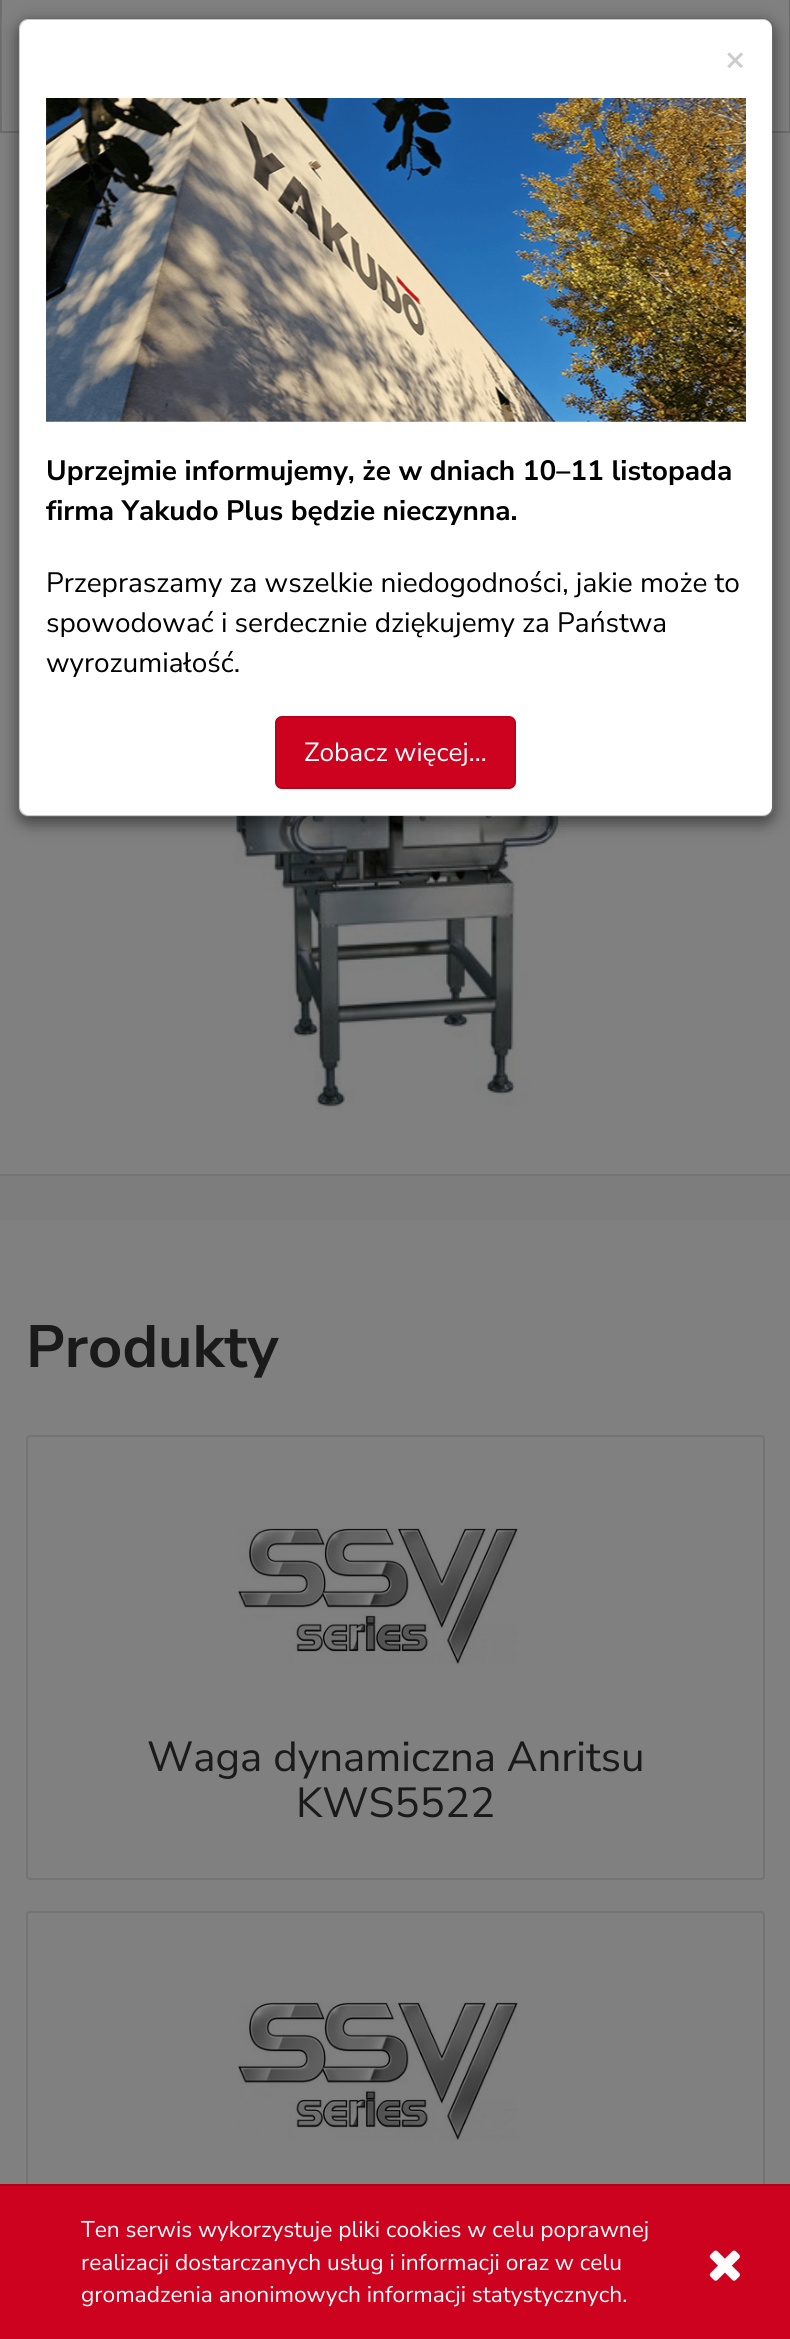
#include <cairo/cairo.h>
#include <math.h>
#include <stddef.h>


static void rounded_rect(cairo_t *cr, double x, double y, double w, double h, double r) {
  cairo_new_sub_path(cr);
  cairo_arc(cr, x + w - r, y + h - r, r, 0, M_PI / 2);
  cairo_arc(cr, x + r, y + h - r, r, M_PI / 2, M_PI);
  cairo_arc(cr, x + r, y + r, r, M_PI, 1.5 * M_PI);
  cairo_arc(cr, x + w - r, y + r, r, 1.5 * M_PI, 2 * M_PI);
  cairo_close_path(cr);
}

static void draw_shadow(cairo_t *cr, double x, double y, double w, double h, double r, double blur, double alpha) {
  cairo_push_group_with_content(cr, CAIRO_CONTENT_ALPHA);
  cairo_set_operator(cr, CAIRO_OPERATOR_SOURCE);
  for (int i = 15; i >= -15 && fmin(w, h) + blur * i / 3 > 0; i -= 2) {
    double e = blur * i / 6;
    cairo_set_source_rgba(cr, 0, 0, 0, alpha * erfc((i - 1) / 8.5) / 2);
    rounded_rect(cr, x - e, y - e, w + 2 * e, h + 2 * e, fmax(0, fmin(r + e + blur * .6, fmin(w, h) / 2 + e)));
    cairo_fill(cr);
  }
  cairo_pattern_t *soft = cairo_pop_group(cr);
  cairo_mask(cr, soft);
  cairo_pattern_destroy(soft);
}

static void draw_image(cairo_t *cr, const char *path, double x, double y, double w, double h) {
  cairo_surface_t *image = cairo_image_surface_create_from_png(path);
  cairo_save(cr);
  cairo_set_source_surface(cr, image, x, y);
  cairo_rectangle(cr, x, y, w, h);
  cairo_fill(cr);
  cairo_restore(cr);
  cairo_surface_destroy(image);
}

static void draw(cairo_t *cr) {
  cairo_pattern_t *gradient;
  cairo_set_source_rgb(cr, 128 / 255.0, 128 / 255.0, 128 / 255.0);
  cairo_paint(cr);
  cairo_set_source_rgb(cr, 109 / 255.0, 109 / 255.0, 109 / 255.0);
  cairo_new_path(cr);
  cairo_move_to(cr, 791, 0);
  cairo_line_to(cr, 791, 133);
  cairo_line_to(cr, 789, 131);
  cairo_line_to(cr, 789, 0);
  cairo_close_path(cr);
  cairo_fill(cr);
  cairo_set_source_rgba(cr, 0, 0, 0, 0.15);
  cairo_new_path(cr);
  cairo_move_to(cr, 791, 133);
  cairo_line_to(cr, 0, 133);
  cairo_line_to(cr, 2, 131);
  cairo_line_to(cr, 789, 131);
  cairo_close_path(cr);
  cairo_fill(cr);
  cairo_new_path(cr);
  cairo_move_to(cr, 0, 133);
  cairo_line_to(cr, 0, 0);
  cairo_line_to(cr, 2, 0);
  cairo_line_to(cr, 2, 131);
  cairo_close_path(cr);
  cairo_fill(cr);
  draw_image(cr, "images/1.png", 1, 17, 280, 97);
  draw_image(cr, "images/3.png", 232, 816, 333, 293);
  cairo_save(cr);
  cairo_set_fill_rule(cr, CAIRO_FILL_RULE_EVEN_ODD);
  cairo_new_path(cr);
  cairo_move_to(cr, 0, 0);
  cairo_line_to(cr, 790, 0);
  cairo_line_to(cr, 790, 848);
  cairo_line_to(cr, 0, 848);
  cairo_close_path(cr);
  cairo_move_to(cr, 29, 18);
  cairo_line_to(cr, 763, 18);
  cairo_curve_to(cr, 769, 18, 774, 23, 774, 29);
  cairo_line_to(cr, 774, 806);
  cairo_curve_to(cr, 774, 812, 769, 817, 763, 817);
  cairo_line_to(cr, 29, 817);
  cairo_curve_to(cr, 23, 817, 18, 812, 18, 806);
  cairo_line_to(cr, 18, 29);
  cairo_curve_to(cr, 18, 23, 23, 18, 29, 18);
  cairo_close_path(cr);
  cairo_clip(cr);
  cairo_set_source_rgb(cr, 0, 0, 0);
  draw_shadow(cr, 18, 23, 756, 800, 11, 8, 0.5);
  cairo_restore(cr);
  cairo_set_source_rgb(cr, 1, 1, 1);
  rounded_rect(cr, 19, 19, 753, 797, 9);
  cairo_fill(cr);
  rounded_rect(cr, 19, 19, 754, 797, 10);
  cairo_set_source_rgba(cr, 0, 0, 0, 0.2);
  cairo_stroke(cr);
  draw_image(cr, "images/2.png", 46, 98, 700, 324);
  cairo_set_source_rgb(cr, 205 / 255.0, 2 / 255.0, 31 / 255.0);
  rounded_rect(cr, 275, 716, 241, 73, 7);
  cairo_fill(cr);
  rounded_rect(cr, 276, 717, 239, 71, 6);
  cairo_set_source_rgba(cr, 0, 0, 0, 0.1);
  cairo_stroke(cr);
  gradient = cairo_pattern_create_linear(395, 1176, 396, 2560);
  cairo_pattern_add_color_stop_rgba(gradient, 0, 125 / 255.0, 125 / 255.0, 125 / 255.0, 1);
  cairo_pattern_add_color_stop_rgba(gradient, 0.19, 128 / 255.0, 128 / 255.0, 128 / 255.0, 1);
  cairo_pattern_add_color_stop_rgba(gradient, 1, 128 / 255.0, 128 / 255.0, 128 / 255.0, 1);
  cairo_set_source(cr, gradient);
  cairo_pattern_destroy(gradient);
  cairo_rectangle(cr, 0, 1176, 790, 44);
  cairo_fill(cr);
  cairo_set_source_rgb(cr, 115 / 255.0, 115 / 255.0, 115 / 255.0);
  cairo_rectangle(cr, 0, 1174, 790, 2);
  cairo_fill(cr);
  rounded_rect(cr, 27, 1436, 737, 443, 3);
  cairo_set_source_rgba(cr, 0, 0, 0, 0.1);
  cairo_stroke(cr);
  draw_image(cr, "images/4.png", 238, 1528, 280, 137);
  rounded_rect(cr, 27, 1912, 737, 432, 3);
  cairo_set_source_rgb(cr, 115 / 255.0, 115 / 255.0, 115 / 255.0);
  cairo_stroke(cr);
  draw_image(cr, "images/5.png", 238, 2002, 280, 139);
  cairo_set_source_rgb(cr, 205 / 255.0, 2 / 255.0, 31 / 255.0);
  cairo_rectangle(cr, 0, 2186, 790, 153);
  cairo_fill(cr);
  cairo_set_source_rgb(cr, 176 / 255.0, 2 / 255.0, 27 / 255.0);
  cairo_rectangle(cr, 0, 2184, 790, 2);
  cairo_fill(cr);
  draw_image(cr, "images/6.png", 709, 2250, 31, 31);
  cairo_select_font_face(cr, "Nunito Sans", CAIRO_FONT_SLANT_NORMAL, CAIRO_FONT_WEIGHT_BOLD);
  cairo_set_font_size(cr, 34);
  cairo_set_source_rgb(cr, 204 / 255.0, 204 / 255.0, 204 / 255.0);
  cairo_move_to(cr, 725, 70);
  cairo_show_text(cr, "×");
  cairo_set_font_size(cr, 28);
  cairo_set_source_rgb(cr, 0, 0, 0);
  cairo_move_to(cr, 46, 480);
  cairo_show_text(cr, "Uprzejmie informujemy, że w dniach 10–11 listopada");
  cairo_move_to(cr, 46, 520);
  cairo_show_text(cr, "firma Yakudo Plus będzie nieczynna.");
  cairo_select_font_face(cr, "Nunito Sans", CAIRO_FONT_SLANT_NORMAL, CAIRO_FONT_WEIGHT_NORMAL);
  cairo_move_to(cr, 46, 592);
  cairo_show_text(cr, "Przepraszamy za wszelkie niedogodności, jakie może to");
  cairo_move_to(cr, 46, 632);
  cairo_show_text(cr, "spowodować i serdecznie dziękujemy za Państwa");
  cairo_move_to(cr, 46, 672);
  cairo_show_text(cr, "wyrozumiałość.");
  cairo_set_font_size(cr, 26.25);
  cairo_set_source_rgb(cr, 1, 1, 1);
  cairo_move_to(cr, 304, 761);
  cairo_show_text(cr, "Zobacz więcej...");
  cairo_select_font_face(cr, "Nunito Sans", CAIRO_FONT_SLANT_NORMAL, CAIRO_FONT_WEIGHT_BOLD);
  cairo_set_font_size(cr, 59.5);
  cairo_set_source_rgb(cr, 26 / 255.0, 26 / 255.0, 26 / 255.0);
  cairo_move_to(cr, 26, 1367);
  cairo_show_text(cr, "Produkty");
  cairo_select_font_face(cr, "Nunito Sans", CAIRO_FONT_SLANT_NORMAL, CAIRO_FONT_WEIGHT_NORMAL);
  cairo_set_font_size(cr, 42);
  cairo_move_to(cr, 147, 1771);
  cairo_show_text(cr, "Waga dynamiczna Anritsu");
  cairo_move_to(cr, 296, 1817);
  cairo_show_text(cr, "KWS5522");
  cairo_set_font_size(cr, 22.75);
  cairo_set_source_rgb(cr, 1, 1, 1);
  cairo_move_to(cr, 81, 2237);
  cairo_show_text(cr, "Ten serwis wykorzystuje pliki cookies w celu poprawnej");
  cairo_move_to(cr, 81, 2270);
  cairo_show_text(cr, "realizacji dostarczanych usług i informacji oraz w celu");
  cairo_move_to(cr, 81, 2302);
  cairo_show_text(cr, "gromadzenia anonimowych informacji statystycznych.");
}

int main(void) {
  cairo_surface_t *surface = cairo_image_surface_create(CAIRO_FORMAT_RGB24, 790, 2339);
  cairo_t *cr = cairo_create(surface);
  cairo_font_options_t *options = cairo_font_options_create();
  cairo_font_options_set_hint_metrics(options, CAIRO_HINT_METRICS_OFF);
  cairo_font_options_set_hint_style(options, CAIRO_HINT_STYLE_NONE);
  cairo_set_font_options(cr, options);
  cairo_set_miter_limit(cr, 4);
  draw(cr);
  cairo_surface_write_to_png(surface, "out.png");
  cairo_font_options_destroy(options);
  cairo_destroy(cr);
  cairo_surface_destroy(surface);
  return 0;
}
